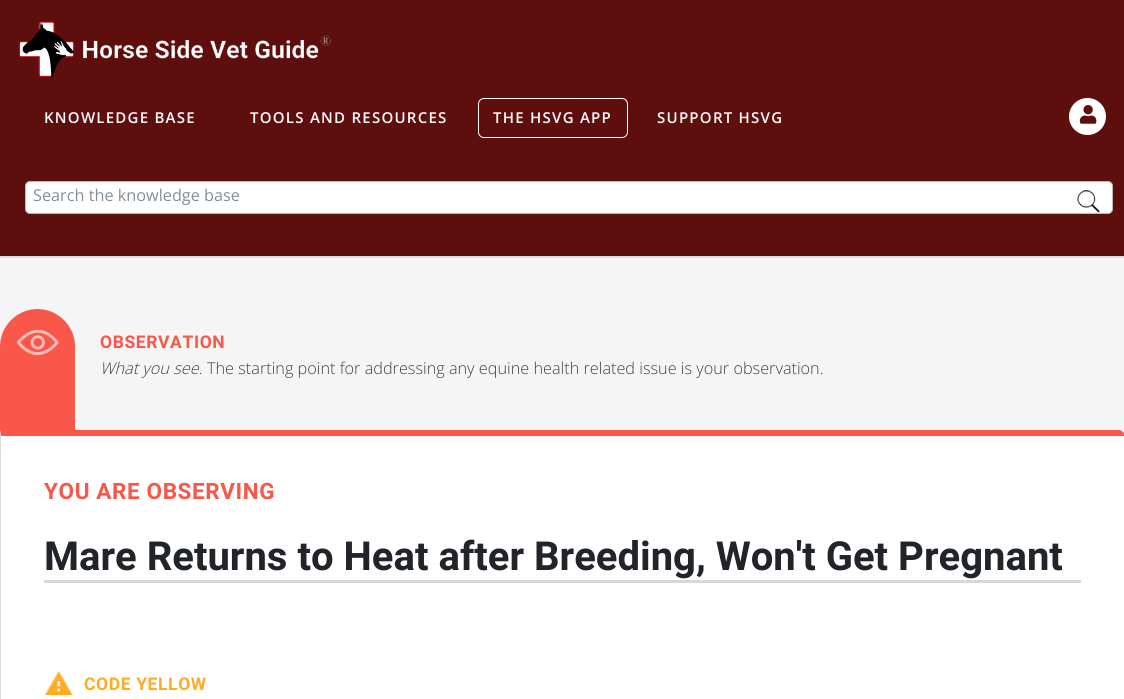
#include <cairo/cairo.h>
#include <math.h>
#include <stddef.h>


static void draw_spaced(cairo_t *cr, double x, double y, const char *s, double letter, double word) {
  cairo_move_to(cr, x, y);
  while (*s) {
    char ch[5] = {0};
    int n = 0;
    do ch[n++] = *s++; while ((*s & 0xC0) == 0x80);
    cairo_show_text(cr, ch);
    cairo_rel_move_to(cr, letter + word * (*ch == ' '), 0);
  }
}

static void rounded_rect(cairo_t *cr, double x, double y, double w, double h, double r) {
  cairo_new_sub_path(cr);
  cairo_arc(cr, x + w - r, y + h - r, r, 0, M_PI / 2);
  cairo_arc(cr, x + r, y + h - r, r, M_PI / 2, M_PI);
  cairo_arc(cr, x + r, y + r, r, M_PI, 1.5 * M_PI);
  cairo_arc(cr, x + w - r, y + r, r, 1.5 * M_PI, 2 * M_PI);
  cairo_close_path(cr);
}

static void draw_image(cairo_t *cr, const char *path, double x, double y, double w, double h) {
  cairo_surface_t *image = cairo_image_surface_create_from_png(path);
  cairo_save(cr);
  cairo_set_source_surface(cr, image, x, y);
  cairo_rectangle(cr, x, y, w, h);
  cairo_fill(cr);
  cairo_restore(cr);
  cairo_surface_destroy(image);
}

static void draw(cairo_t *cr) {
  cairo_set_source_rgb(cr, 245 / 255.0, 245 / 255.0, 245 / 255.0);
  cairo_paint(cr);
  cairo_set_source_rgb(cr, 221 / 255.0, 221 / 255.0, 221 / 255.0);
  cairo_rectangle(cr, 0, 256, 1124, 2);
  cairo_fill(cr);
  cairo_set_source_rgb(cr, 95 / 255.0, 14 / 255.0, 14 / 255.0);
  cairo_rectangle(cr, 0, 0, 1124, 256);
  cairo_fill(cr);
  draw_image(cr, "images/1.png", 18, 21, 314, 57);
  rounded_rect(cr, 478.5, 98.5, 149, 39, 5.5);
  cairo_set_source_rgb(cr, 1, 1, 1);
  cairo_set_line_width(cr, 1);
  cairo_stroke(cr);
  cairo_arc(cr, 1087.5, 116.5, 18.5, 0, 2 * M_PI);
  cairo_fill(cr);
  draw_image(cr, "images/2.png", 1079, 105, 18, 19);
  rounded_rect(cr, 25.5, 181.5, 1087, 32, 4.5);
  cairo_fill_preserve(cr);
  cairo_set_source_rgb(cr, 187 / 255.0, 187 / 255.0, 187 / 255.0);
  cairo_stroke(cr);
  draw_image(cr, "images/3.png", 1077, 190, 23, 23);
  cairo_set_source_rgb(cr, 249 / 255.0, 87 / 255.0, 74 / 255.0);
  cairo_new_path(cr);
  cairo_move_to(cr, 37.5, 309);
  cairo_curve_to(cr, 58, 309, 75, 326, 75, 346.5);
  cairo_line_to(cr, 75, 430);
  cairo_line_to(cr, 0, 430);
  cairo_line_to(cr, 0, 346.5);
  cairo_curve_to(cr, 0, 326, 17, 309, 37.5, 309);
  cairo_close_path(cr);
  cairo_fill(cr);
  draw_image(cr, "images/4.png", 17, 329, 42, 26);
  cairo_set_source_rgb(cr, 1, 1, 1);
  cairo_new_path(cr);
  cairo_move_to(cr, 1, 436);
  cairo_line_to(cr, 1124, 436);
  cairo_line_to(cr, 1124, 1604);
  cairo_curve_to(cr, 1124, 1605, 1123, 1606, 1121, 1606);
  cairo_line_to(cr, 4, 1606);
  cairo_curve_to(cr, 2, 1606, 1, 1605, 1, 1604);
  cairo_close_path(cr);
  cairo_fill(cr);
  cairo_set_source_rgb(cr, 249 / 255.0, 87 / 255.0, 74 / 255.0);
  cairo_new_path(cr);
  cairo_move_to(cr, 0, 430);
  cairo_line_to(cr, 1, 436);
  cairo_line_to(cr, 1124, 436);
  cairo_line_to(cr, 1124, 433);
  cairo_curve_to(cr, 1123, 432, 1121, 430, 1119, 430);
  cairo_close_path(cr);
  cairo_fill(cr);
  cairo_set_source_rgb(cr, 221 / 255.0, 221 / 255.0, 221 / 255.0);
  cairo_new_path(cr);
  cairo_move_to(cr, 1, 436);
  cairo_line_to(cr, 0, 430);
  cairo_line_to(cr, 0, 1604);
  cairo_line_to(cr, 1, 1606);
  cairo_line_to(cr, 2, 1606);
  cairo_line_to(cr, 1, 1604);
  cairo_close_path(cr);
  cairo_fill(cr);
  cairo_set_source_rgb(cr, 216 / 255.0, 216 / 255.0, 216 / 255.0);
  cairo_rectangle(cr, 44, 580, 1037, 3);
  cairo_fill(cr);
  draw_image(cr, "images/5.png", 45, 671, 28, 24);
  cairo_select_font_face(cr, "Open Sans SemiBold", CAIRO_FONT_SLANT_NORMAL, CAIRO_FONT_WEIGHT_NORMAL);
  cairo_set_font_size(cr, 15);
  cairo_set_source_rgb(cr, 1, 1, 1);
  draw_spaced(cr, 44, 123, "KNOWLEDGE BASE", 1.25, 0);
  draw_spaced(cr, 250, 123, "TOOLS AND RESOURCES", 1.25, 0);
  draw_spaced(cr, 493, 123, "THE HSVG APP", 1.25, 0);
  draw_spaced(cr, 657, 123, "SUPPORT HSVG", 1.25, 0);
  cairo_select_font_face(cr, "Open Sans", CAIRO_FONT_SLANT_NORMAL, CAIRO_FONT_WEIGHT_NORMAL);
  cairo_set_font_size(cr, 16.25);
  cairo_set_source_rgb(cr, 134 / 255.0, 142 / 255.0, 150 / 255.0);
  cairo_move_to(cr, 33, 201);
  cairo_show_text(cr, "Search the knowledge base");
  cairo_select_font_face(cr, "Heebo", CAIRO_FONT_SLANT_NORMAL, CAIRO_FONT_WEIGHT_BOLD);
  cairo_set_font_size(cr, 17.5);
  cairo_set_source_rgb(cr, 249 / 255.0, 87 / 255.0, 74 / 255.0);
  draw_spaced(cr, 100, 348, "OBSERVATION", 0.6, 0);
  cairo_select_font_face(cr, "Open Sans Light", CAIRO_FONT_SLANT_ITALIC, CAIRO_FONT_WEIGHT_NORMAL);
  cairo_set_font_size(cr, 16.25);
  cairo_set_source_rgb(cr, 69 / 255.0, 64 / 255.0, 64 / 255.0);
  cairo_move_to(cr, 100, 374);
  cairo_show_text(cr, "What you see.");
  cairo_select_font_face(cr, "Open Sans Light", CAIRO_FONT_SLANT_NORMAL, CAIRO_FONT_WEIGHT_NORMAL);
  cairo_move_to(cr, 207, 374);
  cairo_show_text(cr, "The starting point for addressing any equine health related issue is your observation.");
  cairo_select_font_face(cr, "Heebo", CAIRO_FONT_SLANT_NORMAL, CAIRO_FONT_WEIGHT_BOLD);
  cairo_set_font_size(cr, 22.5);
  cairo_set_source_rgb(cr, 249 / 255.0, 87 / 255.0, 74 / 255.0);
  draw_spaced(cr, 44, 499, "YOU ARE OBSERVING", 0.6, 0);
  cairo_set_font_size(cr, 40);
  cairo_set_source_rgb(cr, 33 / 255.0, 37 / 255.0, 41 / 255.0);
  cairo_move_to(cr, 44, 570);
  cairo_show_text(cr, "Mare Returns to Heat after Breeding, Won't Get Pregnant");
  cairo_set_font_size(cr, 17.5);
  cairo_set_source_rgb(cr, 1, 172 / 255.0, 35 / 255.0);
  draw_spaced(cr, 84, 690, "CODE YELLOW", 0.6, 0);
}

int main(void) {
  cairo_surface_t *surface = cairo_image_surface_create(CAIRO_FORMAT_RGB24, 1124, 699);
  cairo_t *cr = cairo_create(surface);
  cairo_font_options_t *options = cairo_font_options_create();
  cairo_font_options_set_hint_metrics(options, CAIRO_HINT_METRICS_OFF);
  cairo_font_options_set_hint_style(options, CAIRO_HINT_STYLE_NONE);
  cairo_set_font_options(cr, options);
  cairo_set_miter_limit(cr, 4);
  draw(cr);
  cairo_surface_write_to_png(surface, "out.png");
  cairo_font_options_destroy(options);
  cairo_destroy(cr);
  cairo_surface_destroy(surface);
  return 0;
}
